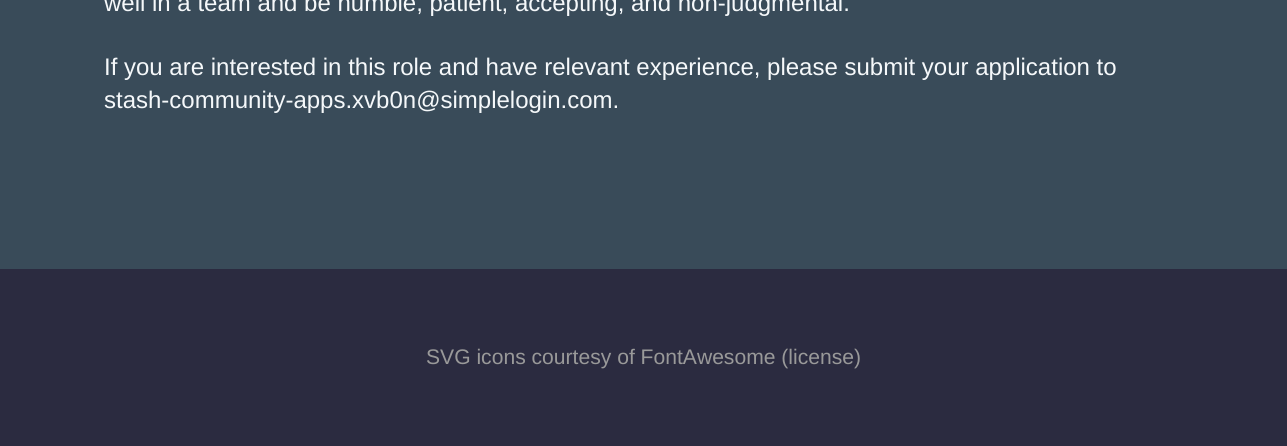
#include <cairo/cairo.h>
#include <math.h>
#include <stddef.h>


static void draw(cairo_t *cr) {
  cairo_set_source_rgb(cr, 57 / 255.0, 75 / 255.0, 89 / 255.0);
  cairo_paint(cr);
  cairo_set_source_rgb(cr, 43 / 255.0, 43 / 255.0, 64 / 255.0);
  cairo_rectangle(cr, 0, 269, 1287, 177);
  cairo_fill(cr);
  cairo_select_font_face(cr, "Liberation Sans", CAIRO_FONT_SLANT_NORMAL, CAIRO_FONT_WEIGHT_NORMAL);
  cairo_set_font_size(cr, 24);
  cairo_set_source_rgb(cr, 245 / 255.0, 248 / 255.0, 250 / 255.0);
  cairo_move_to(cr, 104, 11);
  cairo_show_text(cr, "well in a team and be humble, patient, accepting, and non-judgmental.");
  cairo_move_to(cr, 104, 75);
  cairo_show_text(cr, "If you are interested in this role and have relevant experience, please submit your application to");
  cairo_move_to(cr, 104, 108);
  cairo_show_text(cr, "stash-community-apps.xvb0n@simplelogin.com.");
  cairo_set_font_size(cr, 21.1);
  cairo_set_source_rgb(cr, 153 / 255.0, 153 / 255.0, 153 / 255.0);
  cairo_move_to(cr, 426, 364);
  cairo_show_text(cr, "SVG icons courtesy of FontAwesome (license)");
}

int main(void) {
  cairo_surface_t *surface = cairo_image_surface_create(CAIRO_FORMAT_RGB24, 1287, 446);
  cairo_t *cr = cairo_create(surface);
  cairo_font_options_t *options = cairo_font_options_create();
  cairo_font_options_set_hint_metrics(options, CAIRO_HINT_METRICS_OFF);
  cairo_font_options_set_hint_style(options, CAIRO_HINT_STYLE_NONE);
  cairo_set_font_options(cr, options);
  cairo_set_miter_limit(cr, 4);
  draw(cr);
  cairo_surface_write_to_png(surface, "out.png");
  cairo_font_options_destroy(options);
  cairo_destroy(cr);
  cairo_surface_destroy(surface);
  return 0;
}
